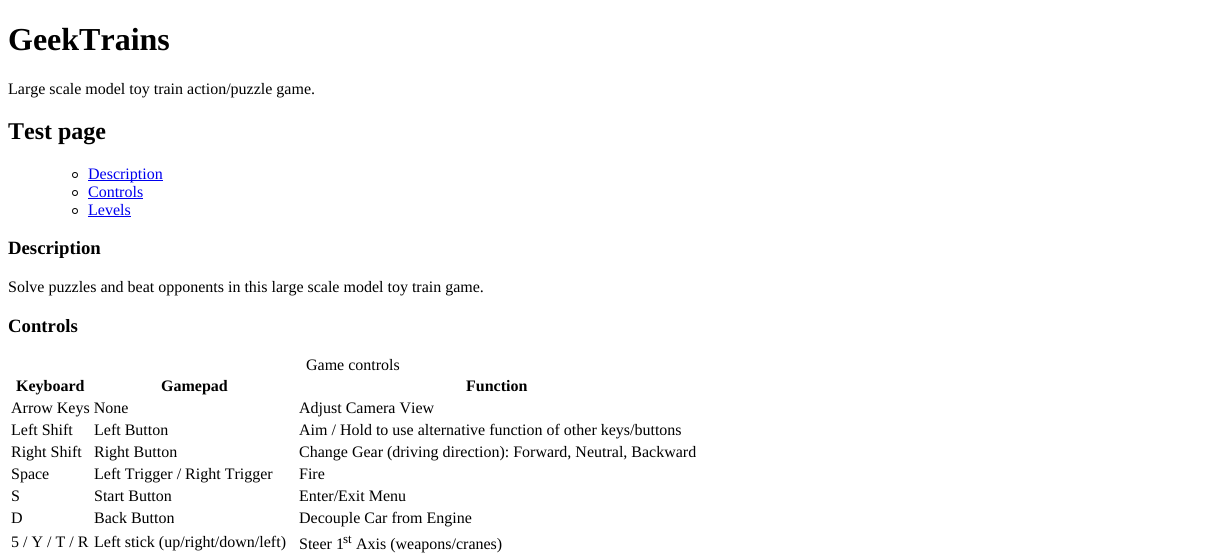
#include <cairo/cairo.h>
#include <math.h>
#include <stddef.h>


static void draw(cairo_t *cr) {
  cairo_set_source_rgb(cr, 1, 1, 1);
  cairo_paint(cr);
  cairo_arc(cr, 75, 175, 2.5, 0, 2 * M_PI);
  cairo_set_source_rgb(cr, 0, 0, 0);
  cairo_set_line_width(cr, 1);
  cairo_stroke(cr);
  cairo_set_source_rgb(cr, 0, 0, 238 / 255.0);
  cairo_rectangle(cr, 88, 180, 75, 1);
  cairo_fill(cr);
  cairo_arc(cr, 75, 193, 2.5, 0, 2 * M_PI);
  cairo_set_source_rgb(cr, 0, 0, 0);
  cairo_stroke(cr);
  cairo_set_source_rgb(cr, 0, 0, 238 / 255.0);
  cairo_rectangle(cr, 88, 198, 55, 1);
  cairo_fill(cr);
  cairo_arc(cr, 75, 211, 2.5, 0, 2 * M_PI);
  cairo_set_source_rgb(cr, 0, 0, 0);
  cairo_stroke(cr);
  cairo_set_source_rgb(cr, 0, 0, 238 / 255.0);
  cairo_rectangle(cr, 88, 216, 43, 1);
  cairo_fill(cr);
  cairo_select_font_face(cr, "Liberation Serif", CAIRO_FONT_SLANT_NORMAL, CAIRO_FONT_WEIGHT_BOLD);
  cairo_set_font_size(cr, 32);
  cairo_set_source_rgb(cr, 0, 0, 0);
  cairo_move_to(cr, 8, 50);
  cairo_show_text(cr, "GeekTrains");
  cairo_select_font_face(cr, "Liberation Serif", CAIRO_FONT_SLANT_NORMAL, CAIRO_FONT_WEIGHT_NORMAL);
  cairo_set_font_size(cr, 16);
  cairo_move_to(cr, 8, 94);
  cairo_show_text(cr, "Large scale model toy train action/puzzle game.");
  cairo_select_font_face(cr, "Liberation Serif", CAIRO_FONT_SLANT_NORMAL, CAIRO_FONT_WEIGHT_BOLD);
  cairo_set_font_size(cr, 24);
  cairo_move_to(cr, 8, 139);
  cairo_show_text(cr, "Test page");
  cairo_select_font_face(cr, "Liberation Serif", CAIRO_FONT_SLANT_NORMAL, CAIRO_FONT_WEIGHT_NORMAL);
  cairo_set_font_size(cr, 16);
  cairo_set_source_rgb(cr, 0, 0, 238 / 255.0);
  cairo_move_to(cr, 88, 179);
  cairo_show_text(cr, "Description");
  cairo_move_to(cr, 88, 197);
  cairo_show_text(cr, "Controls");
  cairo_move_to(cr, 88, 215);
  cairo_show_text(cr, "Levels");
  cairo_select_font_face(cr, "Liberation Serif", CAIRO_FONT_SLANT_NORMAL, CAIRO_FONT_WEIGHT_BOLD);
  cairo_set_font_size(cr, 18.75);
  cairo_set_source_rgb(cr, 0, 0, 0);
  cairo_move_to(cr, 8, 254);
  cairo_show_text(cr, "Description");
  cairo_select_font_face(cr, "Liberation Serif", CAIRO_FONT_SLANT_NORMAL, CAIRO_FONT_WEIGHT_NORMAL);
  cairo_set_font_size(cr, 16);
  cairo_move_to(cr, 8, 292);
  cairo_show_text(cr, "Solve puzzles and beat opponents in this large scale model toy train game.");
  cairo_select_font_face(cr, "Liberation Serif", CAIRO_FONT_SLANT_NORMAL, CAIRO_FONT_WEIGHT_BOLD);
  cairo_set_font_size(cr, 18.75);
  cairo_move_to(cr, 8, 332);
  cairo_show_text(cr, "Controls");
  cairo_select_font_face(cr, "Liberation Serif", CAIRO_FONT_SLANT_NORMAL, CAIRO_FONT_WEIGHT_NORMAL);
  cairo_set_font_size(cr, 16);
  cairo_move_to(cr, 306, 370);
  cairo_show_text(cr, "Game controls");
  cairo_select_font_face(cr, "Liberation Serif", CAIRO_FONT_SLANT_NORMAL, CAIRO_FONT_WEIGHT_BOLD);
  cairo_move_to(cr, 16, 391);
  cairo_show_text(cr, "Keyboard");
  cairo_move_to(cr, 161, 391);
  cairo_show_text(cr, "Gamepad");
  cairo_move_to(cr, 466, 391);
  cairo_show_text(cr, "Function");
  cairo_select_font_face(cr, "Liberation Serif", CAIRO_FONT_SLANT_NORMAL, CAIRO_FONT_WEIGHT_NORMAL);
  cairo_move_to(cr, 11, 413);
  cairo_show_text(cr, "Arrow Keys None");
  cairo_move_to(cr, 299, 413);
  cairo_show_text(cr, "Adjust Camera View");
  cairo_move_to(cr, 11, 435);
  cairo_show_text(cr, "Left Shift");
  cairo_move_to(cr, 94, 435);
  cairo_show_text(cr, "Left Button");
  cairo_move_to(cr, 299, 435);
  cairo_show_text(cr, "Aim / Hold to use alternative function of other keys/buttons");
  cairo_move_to(cr, 11, 457);
  cairo_show_text(cr, "Right Shift");
  cairo_move_to(cr, 94, 457);
  cairo_show_text(cr, "Right Button");
  cairo_move_to(cr, 299, 457);
  cairo_show_text(cr, "Change Gear (driving direction): Forward, Neutral, Backward");
  cairo_move_to(cr, 11, 479);
  cairo_show_text(cr, "Space");
  cairo_move_to(cr, 94, 479);
  cairo_show_text(cr, "Left Trigger / Right Trigger");
  cairo_move_to(cr, 299, 479);
  cairo_show_text(cr, "Fire");
  cairo_move_to(cr, 11, 501);
  cairo_show_text(cr, "S");
  cairo_move_to(cr, 94, 501);
  cairo_show_text(cr, "Start Button");
  cairo_move_to(cr, 299, 501);
  cairo_show_text(cr, "Enter/Exit Menu");
  cairo_move_to(cr, 11, 523);
  cairo_show_text(cr, "D");
  cairo_move_to(cr, 94, 523);
  cairo_show_text(cr, "Back Button");
  cairo_move_to(cr, 299, 523);
  cairo_show_text(cr, "Decouple Car from Engine");
  cairo_move_to(cr, 11, 547);
  cairo_show_text(cr, "5 / Y / T / R");
  cairo_move_to(cr, 94, 547);
  cairo_show_text(cr, "Left stick (up/right/down/left)");
  cairo_move_to(cr, 299, 549);
  cairo_show_text(cr, "Steer 1");
  cairo_set_font_size(cr, 13);
  cairo_move_to(cr, 343, 543);
  cairo_show_text(cr, "st");
  cairo_set_font_size(cr, 16);
  cairo_move_to(cr, 356, 549);
  cairo_show_text(cr, "Axis (weapons/cranes)");
}

int main(void) {
  cairo_surface_t *surface = cairo_image_surface_create(CAIRO_FORMAT_RGB24, 1212, 556);
  cairo_t *cr = cairo_create(surface);
  cairo_font_options_t *options = cairo_font_options_create();
  cairo_font_options_set_hint_metrics(options, CAIRO_HINT_METRICS_OFF);
  cairo_font_options_set_hint_style(options, CAIRO_HINT_STYLE_NONE);
  cairo_set_font_options(cr, options);
  cairo_set_miter_limit(cr, 4);
  draw(cr);
  cairo_surface_write_to_png(surface, "out.png");
  cairo_font_options_destroy(options);
  cairo_destroy(cr);
  cairo_surface_destroy(surface);
  return 0;
}
